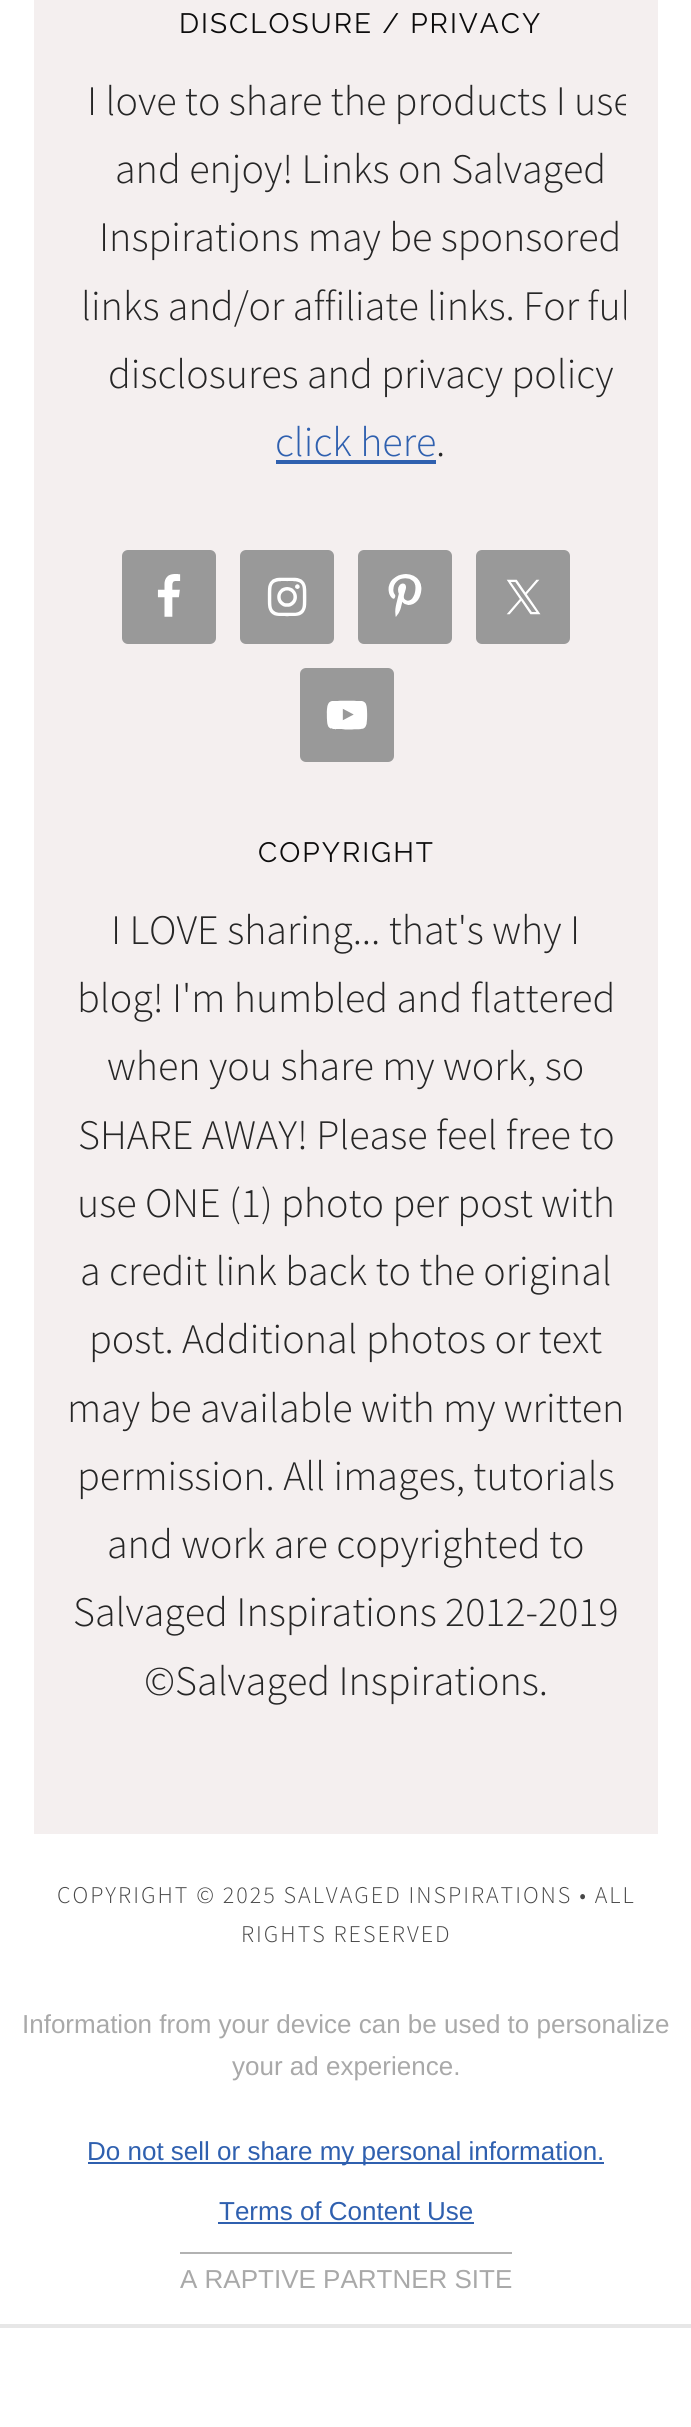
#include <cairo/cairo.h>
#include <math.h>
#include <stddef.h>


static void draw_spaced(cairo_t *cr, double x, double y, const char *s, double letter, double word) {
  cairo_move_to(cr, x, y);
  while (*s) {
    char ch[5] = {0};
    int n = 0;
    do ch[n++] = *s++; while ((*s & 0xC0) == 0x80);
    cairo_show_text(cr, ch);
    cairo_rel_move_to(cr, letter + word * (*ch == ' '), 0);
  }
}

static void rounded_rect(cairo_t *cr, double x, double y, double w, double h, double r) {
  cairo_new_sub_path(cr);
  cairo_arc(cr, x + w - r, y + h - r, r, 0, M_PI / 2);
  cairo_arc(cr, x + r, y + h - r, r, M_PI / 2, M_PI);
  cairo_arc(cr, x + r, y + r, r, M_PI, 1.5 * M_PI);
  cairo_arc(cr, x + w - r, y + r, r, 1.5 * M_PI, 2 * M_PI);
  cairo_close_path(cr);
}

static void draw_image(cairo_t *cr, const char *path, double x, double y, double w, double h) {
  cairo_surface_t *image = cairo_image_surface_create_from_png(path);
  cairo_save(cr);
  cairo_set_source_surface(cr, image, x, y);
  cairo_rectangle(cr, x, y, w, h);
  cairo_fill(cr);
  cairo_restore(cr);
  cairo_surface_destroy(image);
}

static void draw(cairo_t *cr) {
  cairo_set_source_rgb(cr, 1, 1, 1);
  cairo_paint(cr);
  cairo_set_source_rgb(cr, 244 / 255.0, 239 / 255.0, 239 / 255.0);
  cairo_rectangle(cr, 34, 0, 624, 1834);
  cairo_fill(cr);
  cairo_set_source_rgb(cr, 47 / 255.0, 96 / 255.0, 175 / 255.0);
  cairo_rectangle(cr, 276, 460, 160, 4);
  cairo_fill(cr);
  cairo_set_source_rgb(cr, 153 / 255.0, 153 / 255.0, 153 / 255.0);
  rounded_rect(cr, 122, 550, 94, 94, 6);
  cairo_fill(cr);
  draw_image(cr, "images/1.png", 157, 574, 24, 43);
  rounded_rect(cr, 240, 550, 94, 94, 6);
  cairo_fill(cr);
  draw_image(cr, "images/2.png", 267, 577, 40, 40);
  rounded_rect(cr, 358, 550, 94, 94, 6);
  cairo_fill(cr);
  draw_image(cr, "images/3.png", 388, 574, 34, 43);
  rounded_rect(cr, 476, 550, 94, 94, 6);
  cairo_fill(cr);
  draw_image(cr, "images/4.png", 506, 579, 35, 36);
  rounded_rect(cr, 300, 668, 94, 94, 6);
  cairo_fill(cr);
  draw_image(cr, "images/5.png", 326, 700, 42, 30);
  cairo_set_source_rgb(cr, 47 / 255.0, 96 / 255.0, 175 / 255.0);
  cairo_rectangle(cr, 88, 2162, 516, 2);
  cairo_fill(cr);
  cairo_rectangle(cr, 218, 2222, 256, 2);
  cairo_fill(cr);
  cairo_set_source_rgb(cr, 178 / 255.0, 178 / 255.0, 178 / 255.0);
  cairo_rectangle(cr, 180, 2252, 332, 2);
  cairo_fill(cr);
  cairo_set_source_rgb(cr, 231 / 255.0, 231 / 255.0, 231 / 255.0);
  cairo_rectangle(cr, 0, 2324, 691, 4);
  cairo_fill(cr);
  cairo_select_font_face(cr, "Raleway", CAIRO_FONT_SLANT_NORMAL, CAIRO_FONT_WEIGHT_NORMAL);
  cairo_set_font_size(cr, 28);
  cairo_set_source_rgb(cr, 12 / 255.0, 12 / 255.0, 12 / 255.0);
  draw_spaced(cr, 179, 33, "DISCLOSURE / PRIVACY", 2, 0);
  cairo_save(cr);
  cairo_rectangle(cr, 66, 0, 560, 1802);
  cairo_clip(cr);
  cairo_select_font_face(cr, "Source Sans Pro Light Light", CAIRO_FONT_SLANT_NORMAL, CAIRO_FONT_WEIGHT_NORMAL);
  cairo_set_font_size(cr, 42);
  cairo_set_source_rgb(cr, 38 / 255.0, 38 / 255.0, 38 / 255.0);
  cairo_move_to(cr, 87, 115);
  cairo_show_text(cr, "I love to share the products I use");
  cairo_restore(cr);
  cairo_select_font_face(cr, "Source Sans Pro Light Light", CAIRO_FONT_SLANT_NORMAL, CAIRO_FONT_WEIGHT_NORMAL);
  cairo_set_font_size(cr, 42);
  cairo_set_source_rgb(cr, 38 / 255.0, 38 / 255.0, 38 / 255.0);
  cairo_move_to(cr, 115, 183);
  cairo_show_text(cr, "and enjoy! Links on Salvaged");
  cairo_move_to(cr, 99, 251);
  cairo_show_text(cr, "Inspirations may be sponsored");
  cairo_save(cr);
  cairo_rectangle(cr, 66, 0, 560, 1802);
  cairo_clip(cr);
  cairo_move_to(cr, 81, 320);
  cairo_show_text(cr, "links and/or affiliate links. For ful");
  cairo_restore(cr);
  cairo_move_to(cr, 108, 388);
  cairo_show_text(cr, "disclosures and privacy policy");
  cairo_set_source_rgb(cr, 47 / 255.0, 96 / 255.0, 175 / 255.0);
  cairo_move_to(cr, 275, 456);
  cairo_show_text(cr, "click here");
  cairo_set_source_rgb(cr, 38 / 255.0, 38 / 255.0, 38 / 255.0);
  cairo_move_to(cr, 436, 456);
  cairo_show_text(cr, ".");
  cairo_select_font_face(cr, "Raleway", CAIRO_FONT_SLANT_NORMAL, CAIRO_FONT_WEIGHT_NORMAL);
  cairo_set_font_size(cr, 28);
  cairo_set_source_rgb(cr, 12 / 255.0, 12 / 255.0, 12 / 255.0);
  draw_spaced(cr, 258, 862, "COPYRIGHT", 2, 0);
  cairo_select_font_face(cr, "Source Sans Pro Light Light", CAIRO_FONT_SLANT_NORMAL, CAIRO_FONT_WEIGHT_NORMAL);
  cairo_set_font_size(cr, 42);
  cairo_set_source_rgb(cr, 38 / 255.0, 38 / 255.0, 38 / 255.0);
  cairo_move_to(cr, 111, 944);
  cairo_show_text(cr, "I LOVE sharing... that's why I");
  cairo_move_to(cr, 77, 1012);
  cairo_show_text(cr, "blog! I'm humbled and flattered");
  cairo_move_to(cr, 107, 1080);
  cairo_show_text(cr, "when you share my work, so");
  cairo_move_to(cr, 78, 1149);
  cairo_show_text(cr, "SHARE AWAY! Please feel free to");
  cairo_move_to(cr, 77, 1217);
  cairo_show_text(cr, "use ONE (1) photo per post with");
  cairo_move_to(cr, 80, 1285);
  cairo_show_text(cr, "a credit link back to the original");
  cairo_move_to(cr, 89, 1353);
  cairo_show_text(cr, "post. Additional photos or text");
  cairo_move_to(cr, 67, 1422);
  cairo_show_text(cr, "may be available with my written");
  cairo_move_to(cr, 77, 1490);
  cairo_show_text(cr, "permission. All images, tutorials");
  cairo_move_to(cr, 107, 1558);
  cairo_show_text(cr, "and work are copyrighted to");
  cairo_move_to(cr, 73, 1626);
  cairo_show_text(cr, "Salvaged Inspirations 2012-2019");
  cairo_move_to(cr, 144, 1695);
  cairo_show_text(cr, "©Salvaged Inspirations.");
  cairo_set_font_size(cr, 24);
  cairo_set_source_rgb(cr, 71 / 255.0, 71 / 255.0, 71 / 255.0);
  draw_spaced(cr, 57, 1903, "COPYRIGHT © 2025 SALVAGED INSPIRATIONS • ALL", 2, 0);
  draw_spaced(cr, 241, 1942, "RIGHTS RESERVED", 2, 0);
  cairo_select_font_face(cr, "Liberation Sans", CAIRO_FONT_SLANT_NORMAL, CAIRO_FONT_WEIGHT_NORMAL);
  cairo_set_font_size(cr, 26);
  cairo_set_source_rgb(cr, 169 / 255.0, 169 / 255.0, 169 / 255.0);
  cairo_move_to(cr, 22, 2033);
  cairo_show_text(cr, "Information from your device can be used to personalize");
  cairo_move_to(cr, 232, 2075);
  cairo_show_text(cr, "your ad experience.");
  cairo_set_source_rgb(cr, 47 / 255.0, 96 / 255.0, 175 / 255.0);
  cairo_move_to(cr, 87, 2160);
  cairo_show_text(cr, "Do not sell or share my personal information.");
  cairo_move_to(cr, 219, 2220);
  cairo_show_text(cr, "Terms of Content Use");
  cairo_set_source_rgb(cr, 169 / 255.0, 169 / 255.0, 169 / 255.0);
  cairo_move_to(cr, 180, 2288);
  cairo_show_text(cr, "A RAPTIVE PARTNER SITE");
}

int main(void) {
  cairo_surface_t *surface = cairo_image_surface_create(CAIRO_FORMAT_RGB24, 691, 2427);
  cairo_t *cr = cairo_create(surface);
  cairo_font_options_t *options = cairo_font_options_create();
  cairo_font_options_set_hint_metrics(options, CAIRO_HINT_METRICS_OFF);
  cairo_font_options_set_hint_style(options, CAIRO_HINT_STYLE_NONE);
  cairo_set_font_options(cr, options);
  cairo_set_miter_limit(cr, 4);
  draw(cr);
  cairo_surface_write_to_png(surface, "out.png");
  cairo_font_options_destroy(options);
  cairo_destroy(cr);
  cairo_surface_destroy(surface);
  return 0;
}
